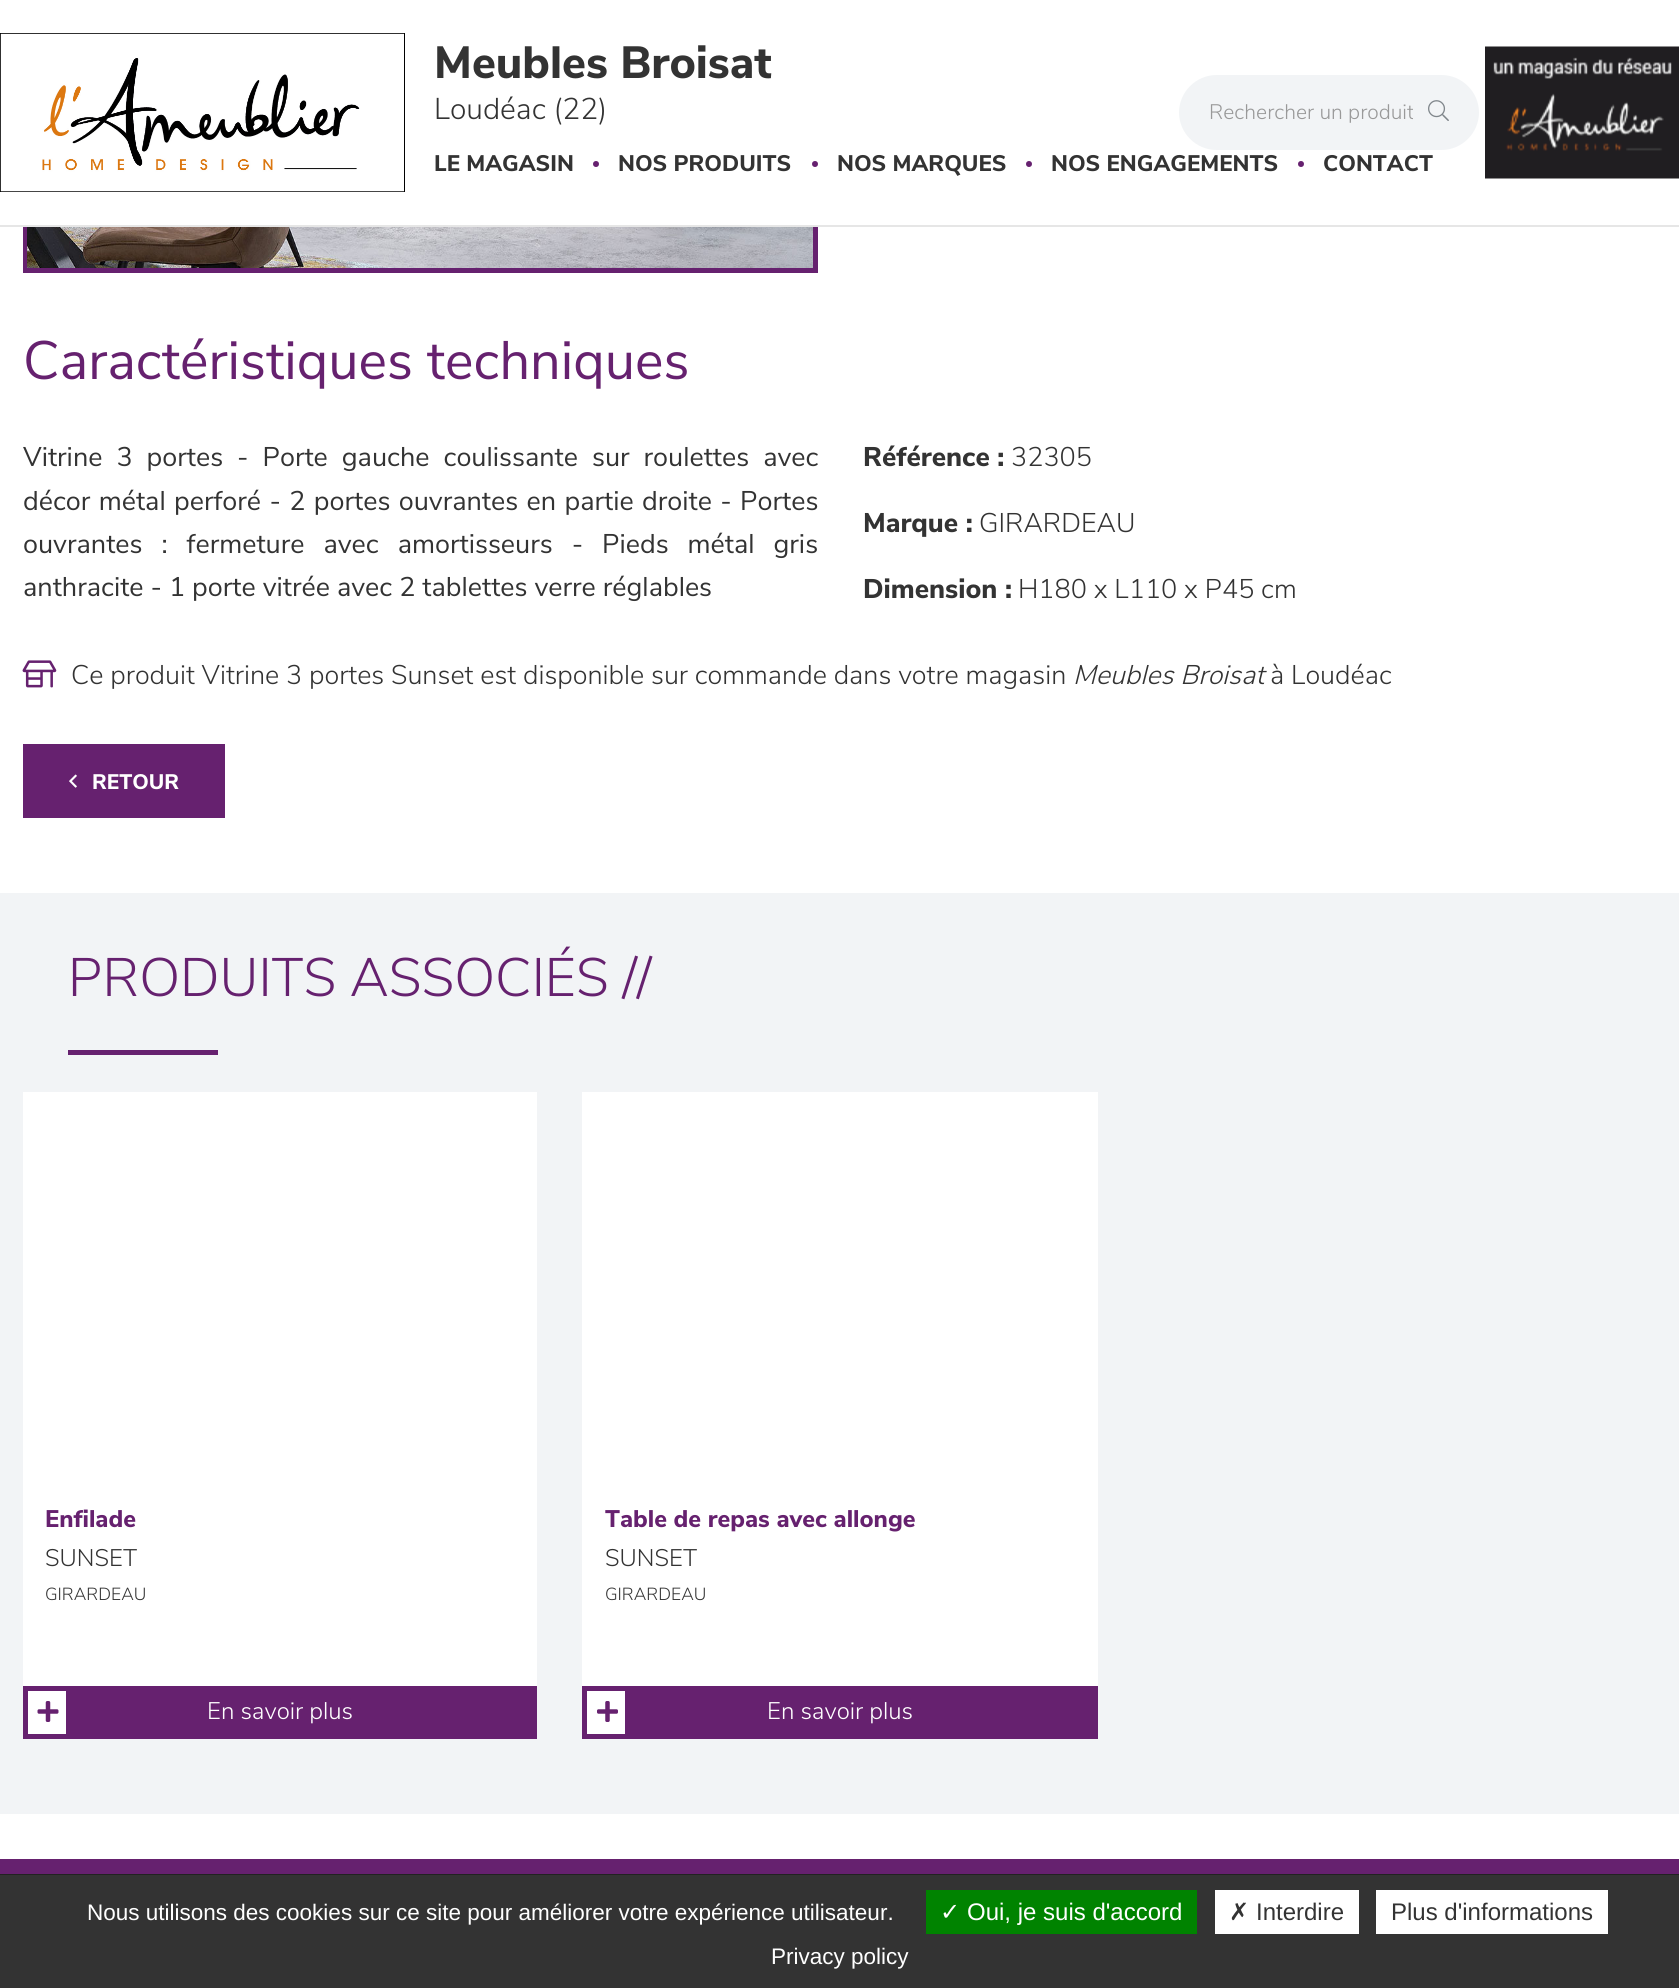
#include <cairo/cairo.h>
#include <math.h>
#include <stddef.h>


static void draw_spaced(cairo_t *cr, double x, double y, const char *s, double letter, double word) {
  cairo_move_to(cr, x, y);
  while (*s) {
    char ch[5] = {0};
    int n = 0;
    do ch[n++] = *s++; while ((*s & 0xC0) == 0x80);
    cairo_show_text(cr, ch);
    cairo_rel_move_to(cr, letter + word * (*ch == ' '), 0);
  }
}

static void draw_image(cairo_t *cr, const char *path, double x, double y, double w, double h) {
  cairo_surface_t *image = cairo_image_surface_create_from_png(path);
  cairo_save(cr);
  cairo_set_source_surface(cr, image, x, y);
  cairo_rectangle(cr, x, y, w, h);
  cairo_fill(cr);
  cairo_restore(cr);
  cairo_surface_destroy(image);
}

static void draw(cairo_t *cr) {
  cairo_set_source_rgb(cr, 1, 1, 1);
  cairo_paint(cr);
  cairo_rectangle(cr, 25.5, -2.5, 790, 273);
  cairo_set_source_rgb(cr, 102 / 255.0, 33 / 255.0, 111 / 255.0);
  cairo_set_line_width(cr, 5);
  cairo_stroke(cr);
  cairo_set_source_rgb(cr, 1, 1, 1);
  cairo_rectangle(cr, 23, 0, 795, 225);
  cairo_fill(cr);
  cairo_set_source_rgb(cr, 230 / 255.0, 230 / 255.0, 230 / 255.0);
  cairo_rectangle(cr, 0, 225, 1679, 2);
  cairo_fill(cr);
  draw_image(cr, "images/1.png", 0, 33, 405, 159);
  cairo_set_source_rgb(cr, 102 / 255.0, 33 / 255.0, 111 / 255.0);
  cairo_arc(cr, 596, 164, 3, 0, 2 * M_PI);
  cairo_fill(cr);
  cairo_arc(cr, 815, 164, 3, 0, 2 * M_PI);
  cairo_fill(cr);
  cairo_arc(cr, 1029, 164, 3, 0, 2 * M_PI);
  cairo_fill(cr);
  cairo_arc(cr, 1301, 164, 3, 0, 2 * M_PI);
  cairo_fill(cr);
  cairo_set_source_rgb(cr, 242 / 255.0, 244 / 255.0, 246 / 255.0);
  cairo_new_path(cr);
  cairo_move_to(cr, 1216.5, 75);
  cairo_line_to(cr, 1415, 75);
  cairo_line_to(cr, 1415, 150);
  cairo_line_to(cr, 1216.5, 150);
  cairo_curve_to(cr, 1196, 150, 1179, 133, 1179, 112.5);
  cairo_curve_to(cr, 1179, 92, 1196, 75, 1216.5, 75);
  cairo_close_path(cr);
  cairo_fill(cr);
  draw_image(cr, "images/3.png", 1485, 46, 194, 133);
  draw_image(cr, "images/4.png", 27, 227, 786, 41);
  draw_image(cr, "images/5.png", 22, 660, 35, 28);
  cairo_set_source_rgb(cr, 102 / 255.0, 33 / 255.0, 111 / 255.0);
  cairo_rectangle(cr, 23, 744, 202, 74);
  cairo_fill(cr);
  draw_image(cr, "images/6.png", 69, 774, 8, 14);
  cairo_set_source_rgb(cr, 242 / 255.0, 244 / 255.0, 246 / 255.0);
  cairo_rectangle(cr, 0, 893, 1679, 921);
  cairo_fill(cr);
  cairo_set_source_rgb(cr, 102 / 255.0, 33 / 255.0, 111 / 255.0);
  cairo_rectangle(cr, 68, 1050, 150, 5);
  cairo_fill(cr);
  cairo_set_source_rgb(cr, 1, 1, 1);
  cairo_rectangle(cr, 23, 1092, 514, 594);
  cairo_fill(cr);
  cairo_set_source_rgb(cr, 102 / 255.0, 33 / 255.0, 111 / 255.0);
  cairo_rectangle(cr, 71, 1686, 466, 53);
  cairo_fill(cr);
  cairo_set_source_rgb(cr, 1, 1, 1);
  cairo_rectangle(cr, 25.5, 1688.5, 43, 48);
  cairo_fill_preserve(cr);
  cairo_set_source_rgb(cr, 102 / 255.0, 33 / 255.0, 111 / 255.0);
  cairo_stroke(cr);
  draw_image(cr, "images/7.png", 37, 1701, 22, 21);
  cairo_set_source_rgb(cr, 1, 1, 1);
  cairo_rectangle(cr, 582, 1092, 516, 594);
  cairo_fill(cr);
  cairo_set_source_rgb(cr, 102 / 255.0, 33 / 255.0, 111 / 255.0);
  cairo_rectangle(cr, 630, 1686, 468, 53);
  cairo_fill(cr);
  cairo_set_source_rgb(cr, 1, 1, 1);
  cairo_rectangle(cr, 584.5, 1688.5, 43, 48);
  cairo_fill_preserve(cr);
  cairo_set_source_rgb(cr, 102 / 255.0, 33 / 255.0, 111 / 255.0);
  cairo_stroke(cr);
  draw_image(cr, "images/8.png", 597, 1701, 21, 21);
  cairo_set_source_rgb(cr, 34 / 255.0, 34 / 255.0, 34 / 255.0);
  cairo_rectangle(cr, 0, 1874, 1679, 1);
  cairo_fill(cr);
  cairo_set_source_rgb(cr, 102 / 255.0, 33 / 255.0, 111 / 255.0);
  cairo_rectangle(cr, 0, 1859, 1679, 15);
  cairo_fill(cr);
  cairo_set_source_rgb(cr, 51 / 255.0, 51 / 255.0, 51 / 255.0);
  cairo_rectangle(cr, 0, 1875, 1679, 113);
  cairo_fill(cr);
  cairo_set_source_rgb(cr, 0, 131 / 255.0, 0);
  cairo_rectangle(cr, 926, 1890, 271, 44);
  cairo_fill(cr);
  cairo_set_source_rgb(cr, 1, 1, 1);
  cairo_rectangle(cr, 1215, 1890, 144, 44);
  cairo_fill(cr);
  cairo_rectangle(cr, 1376, 1890, 232, 44);
  cairo_fill(cr);
  cairo_select_font_face(cr, "Nunito Sans ExtraBold", CAIRO_FONT_SLANT_NORMAL, CAIRO_FONT_WEIGHT_NORMAL);
  cairo_set_font_size(cr, 45);
  cairo_set_source_rgb(cr, 51 / 255.0, 51 / 255.0, 51 / 255.0);
  cairo_move_to(cr, 434, 78);
  cairo_show_text(cr, "Meubles Broisat");
  cairo_select_font_face(cr, "Nunito Sans Light", CAIRO_FONT_SLANT_NORMAL, CAIRO_FONT_WEIGHT_NORMAL);
  cairo_set_font_size(cr, 30);
  cairo_move_to(cr, 434, 119);
  cairo_show_text(cr, "Loudéac (22)");
  cairo_select_font_face(cr, "Nunito Sans ExtraBold", CAIRO_FONT_SLANT_NORMAL, CAIRO_FONT_WEIGHT_NORMAL);
  cairo_set_font_size(cr, 22.5);
  cairo_move_to(cr, 434, 171);
  cairo_show_text(cr, "LE MAGASIN");
  cairo_move_to(cr, 618, 171);
  cairo_show_text(cr, "NOS PRODUITS");
  cairo_move_to(cr, 837, 171);
  cairo_show_text(cr, "NOS MARQUES");
  cairo_move_to(cr, 1051, 171);
  cairo_show_text(cr, "NOS ENGAGEMENTS");
  cairo_move_to(cr, 1323, 171);
  cairo_show_text(cr, "CONTACT");
  cairo_select_font_face(cr, "Nunito Sans Light", CAIRO_FONT_SLANT_NORMAL, CAIRO_FONT_WEIGHT_NORMAL);
  cairo_set_font_size(cr, 21);
  cairo_set_source_rgb(cr, 153 / 255.0, 153 / 255.0, 153 / 255.0);
  cairo_move_to(cr, 1209, 119);
  cairo_show_text(cr, "Rechercher un produit");
  cairo_set_source_rgb(cr, 242 / 255.0, 244 / 255.0, 246 / 255.0);
  cairo_new_path(cr);
  cairo_move_to(cr, 1413, 75);
  cairo_line_to(cr, 1441.5, 75);
  cairo_curve_to(cr, 1462, 75, 1479, 92, 1479, 112.5);
  cairo_curve_to(cr, 1479, 133, 1462, 150, 1441.5, 150);
  cairo_line_to(cr, 1413, 150);
  cairo_close_path(cr);
  cairo_fill(cr);
  draw_image(cr, "images/2.png", 1428, 100, 21, 21);
  cairo_select_font_face(cr, "Nunito Sans", CAIRO_FONT_SLANT_NORMAL, CAIRO_FONT_WEIGHT_NORMAL);
  cairo_set_font_size(cr, 54);
  cairo_set_source_rgb(cr, 102 / 255.0, 33 / 255.0, 111 / 255.0);
  cairo_move_to(cr, 23, 379);
  cairo_show_text(cr, "Caractéristiques techniques");
  cairo_set_font_size(cr, 27);
  cairo_set_source_rgb(cr, 51 / 255.0, 51 / 255.0, 51 / 255.0);
  draw_spaced(cr, 23, 466, "Vitrine 3 portes - Porte gauche coulissante sur roulettes avec", 0, 7);
  draw_spaced(cr, 23, 510, "décor métal perforé - 2 portes ouvrantes en partie droite - Portes", 0, 1.4);
  draw_spaced(cr, 23, 553, "ouvrantes : fermeture avec amortisseurs - Pieds métal gris", 0, 12);
  cairo_move_to(cr, 23, 596);
  cairo_show_text(cr, "anthracite - 1 porte vitrée avec 2 tablettes verre réglables");
  cairo_select_font_face(cr, "Nunito Sans ExtraBold", CAIRO_FONT_SLANT_NORMAL, CAIRO_FONT_WEIGHT_NORMAL);
  cairo_move_to(cr, 863, 466);
  cairo_show_text(cr, "Référence :");
  cairo_select_font_face(cr, "Nunito Sans Light", CAIRO_FONT_SLANT_NORMAL, CAIRO_FONT_WEIGHT_NORMAL);
  cairo_move_to(cr, 1011, 466);
  cairo_show_text(cr, "32305");
  cairo_select_font_face(cr, "Nunito Sans ExtraBold", CAIRO_FONT_SLANT_NORMAL, CAIRO_FONT_WEIGHT_NORMAL);
  cairo_move_to(cr, 863, 532);
  cairo_show_text(cr, "Marque :");
  cairo_select_font_face(cr, "Nunito Sans Light", CAIRO_FONT_SLANT_NORMAL, CAIRO_FONT_WEIGHT_NORMAL);
  cairo_move_to(cr, 979, 532);
  cairo_show_text(cr, "GIRARDEAU");
  cairo_select_font_face(cr, "Nunito Sans ExtraBold", CAIRO_FONT_SLANT_NORMAL, CAIRO_FONT_WEIGHT_NORMAL);
  cairo_move_to(cr, 863, 598);
  cairo_show_text(cr, "Dimension :");
  cairo_select_font_face(cr, "Nunito Sans Light", CAIRO_FONT_SLANT_NORMAL, CAIRO_FONT_WEIGHT_NORMAL);
  cairo_move_to(cr, 1018, 598);
  cairo_show_text(cr, "H180 x L110 x P45 cm");
  cairo_move_to(cr, 71, 684);
  cairo_show_text(cr, "Ce produit Vitrine 3 portes Sunset est disponible sur commande dans votre magasin");
  cairo_select_font_face(cr, "Nunito Sans Light", CAIRO_FONT_SLANT_ITALIC, CAIRO_FONT_WEIGHT_NORMAL);
  cairo_move_to(cr, 1073, 684);
  cairo_show_text(cr, "Meubles Broisat");
  cairo_select_font_face(cr, "Nunito Sans Light", CAIRO_FONT_SLANT_NORMAL, CAIRO_FONT_WEIGHT_NORMAL);
  cairo_move_to(cr, 1270, 684);
  cairo_show_text(cr, "à Loudéac");
  cairo_select_font_face(cr, "Nunito Sans ExtraBold", CAIRO_FONT_SLANT_NORMAL, CAIRO_FONT_WEIGHT_NORMAL);
  cairo_set_font_size(cr, 21);
  cairo_set_source_rgb(cr, 1, 1, 1);
  cairo_move_to(cr, 92, 789);
  cairo_show_text(cr, "RETOUR");
  cairo_select_font_face(cr, "Nunito Sans Light", CAIRO_FONT_SLANT_NORMAL, CAIRO_FONT_WEIGHT_NORMAL);
  cairo_set_font_size(cr, 54);
  cairo_set_source_rgb(cr, 102 / 255.0, 33 / 255.0, 111 / 255.0);
  cairo_move_to(cr, 68, 996);
  cairo_show_text(cr, "PRODUITS ASSOCIÉS //");
  cairo_select_font_face(cr, "Nunito Sans ExtraBold", CAIRO_FONT_SLANT_NORMAL, CAIRO_FONT_WEIGHT_NORMAL);
  cairo_set_font_size(cr, 24);
  cairo_move_to(cr, 45, 1527);
  cairo_show_text(cr, "Enfilade");
  cairo_select_font_face(cr, "Nunito Sans Light", CAIRO_FONT_SLANT_NORMAL, CAIRO_FONT_WEIGHT_NORMAL);
  cairo_set_source_rgb(cr, 51 / 255.0, 51 / 255.0, 51 / 255.0);
  cairo_move_to(cr, 45, 1566);
  cairo_show_text(cr, "SUNSET");
  cairo_set_font_size(cr, 17.5);
  cairo_move_to(cr, 45, 1600);
  cairo_show_text(cr, "GIRARDEAU");
  cairo_set_font_size(cr, 24);
  cairo_set_source_rgb(cr, 1, 1, 1);
  cairo_move_to(cr, 207, 1719);
  cairo_show_text(cr, "En savoir plus");
  cairo_select_font_face(cr, "Nunito Sans ExtraBold", CAIRO_FONT_SLANT_NORMAL, CAIRO_FONT_WEIGHT_NORMAL);
  cairo_set_source_rgb(cr, 102 / 255.0, 33 / 255.0, 111 / 255.0);
  cairo_move_to(cr, 605, 1527);
  cairo_show_text(cr, "Table de repas avec allonge");
  cairo_select_font_face(cr, "Nunito Sans Light", CAIRO_FONT_SLANT_NORMAL, CAIRO_FONT_WEIGHT_NORMAL);
  cairo_set_source_rgb(cr, 51 / 255.0, 51 / 255.0, 51 / 255.0);
  cairo_move_to(cr, 605, 1566);
  cairo_show_text(cr, "SUNSET");
  cairo_set_font_size(cr, 17.5);
  cairo_move_to(cr, 605, 1600);
  cairo_show_text(cr, "GIRARDEAU");
  cairo_set_font_size(cr, 24);
  cairo_set_source_rgb(cr, 1, 1, 1);
  cairo_move_to(cr, 767, 1719);
  cairo_show_text(cr, "En savoir plus");
  cairo_select_font_face(cr, "Liberation Sans", CAIRO_FONT_SLANT_NORMAL, CAIRO_FONT_WEIGHT_NORMAL);
  cairo_set_font_size(cr, 22.5);
  cairo_move_to(cr, 87, 1920);
  cairo_show_text(cr, "Nous utilisons des cookies sur ce site pour améliorer votre expérience utilisateur.");
  cairo_select_font_face(cr, "DejaVu Sans", CAIRO_FONT_SLANT_NORMAL, CAIRO_FONT_WEIGHT_NORMAL);
  cairo_set_font_size(cr, 24);
  cairo_move_to(cr, 940, 1920);
  cairo_show_text(cr, "✓");
  cairo_select_font_face(cr, "Liberation Sans", CAIRO_FONT_SLANT_NORMAL, CAIRO_FONT_WEIGHT_NORMAL);
  cairo_move_to(cr, 967, 1920);
  cairo_show_text(cr, "Oui, je suis d'accord");
  cairo_select_font_face(cr, "DejaVu Sans", CAIRO_FONT_SLANT_NORMAL, CAIRO_FONT_WEIGHT_NORMAL);
  cairo_set_source_rgb(cr, 51 / 255.0, 51 / 255.0, 51 / 255.0);
  cairo_move_to(cr, 1229, 1920);
  cairo_show_text(cr, "✗");
  cairo_select_font_face(cr, "Liberation Sans", CAIRO_FONT_SLANT_NORMAL, CAIRO_FONT_WEIGHT_NORMAL);
  cairo_move_to(cr, 1256, 1920);
  cairo_show_text(cr, "Interdire");
  cairo_move_to(cr, 1391, 1920);
  cairo_show_text(cr, "Plus d'informations");
  cairo_set_font_size(cr, 22.5);
  cairo_set_source_rgb(cr, 1, 1, 1);
  cairo_move_to(cr, 771, 1964);
  cairo_show_text(cr, "Privacy policy");
}

int main(void) {
  cairo_surface_t *surface = cairo_image_surface_create(CAIRO_FORMAT_RGB24, 1679, 1988);
  cairo_t *cr = cairo_create(surface);
  cairo_font_options_t *options = cairo_font_options_create();
  cairo_font_options_set_hint_metrics(options, CAIRO_HINT_METRICS_OFF);
  cairo_font_options_set_hint_style(options, CAIRO_HINT_STYLE_NONE);
  cairo_set_font_options(cr, options);
  cairo_set_miter_limit(cr, 4);
  draw(cr);
  cairo_surface_write_to_png(surface, "out.png");
  cairo_font_options_destroy(options);
  cairo_destroy(cr);
  cairo_surface_destroy(surface);
  return 0;
}
